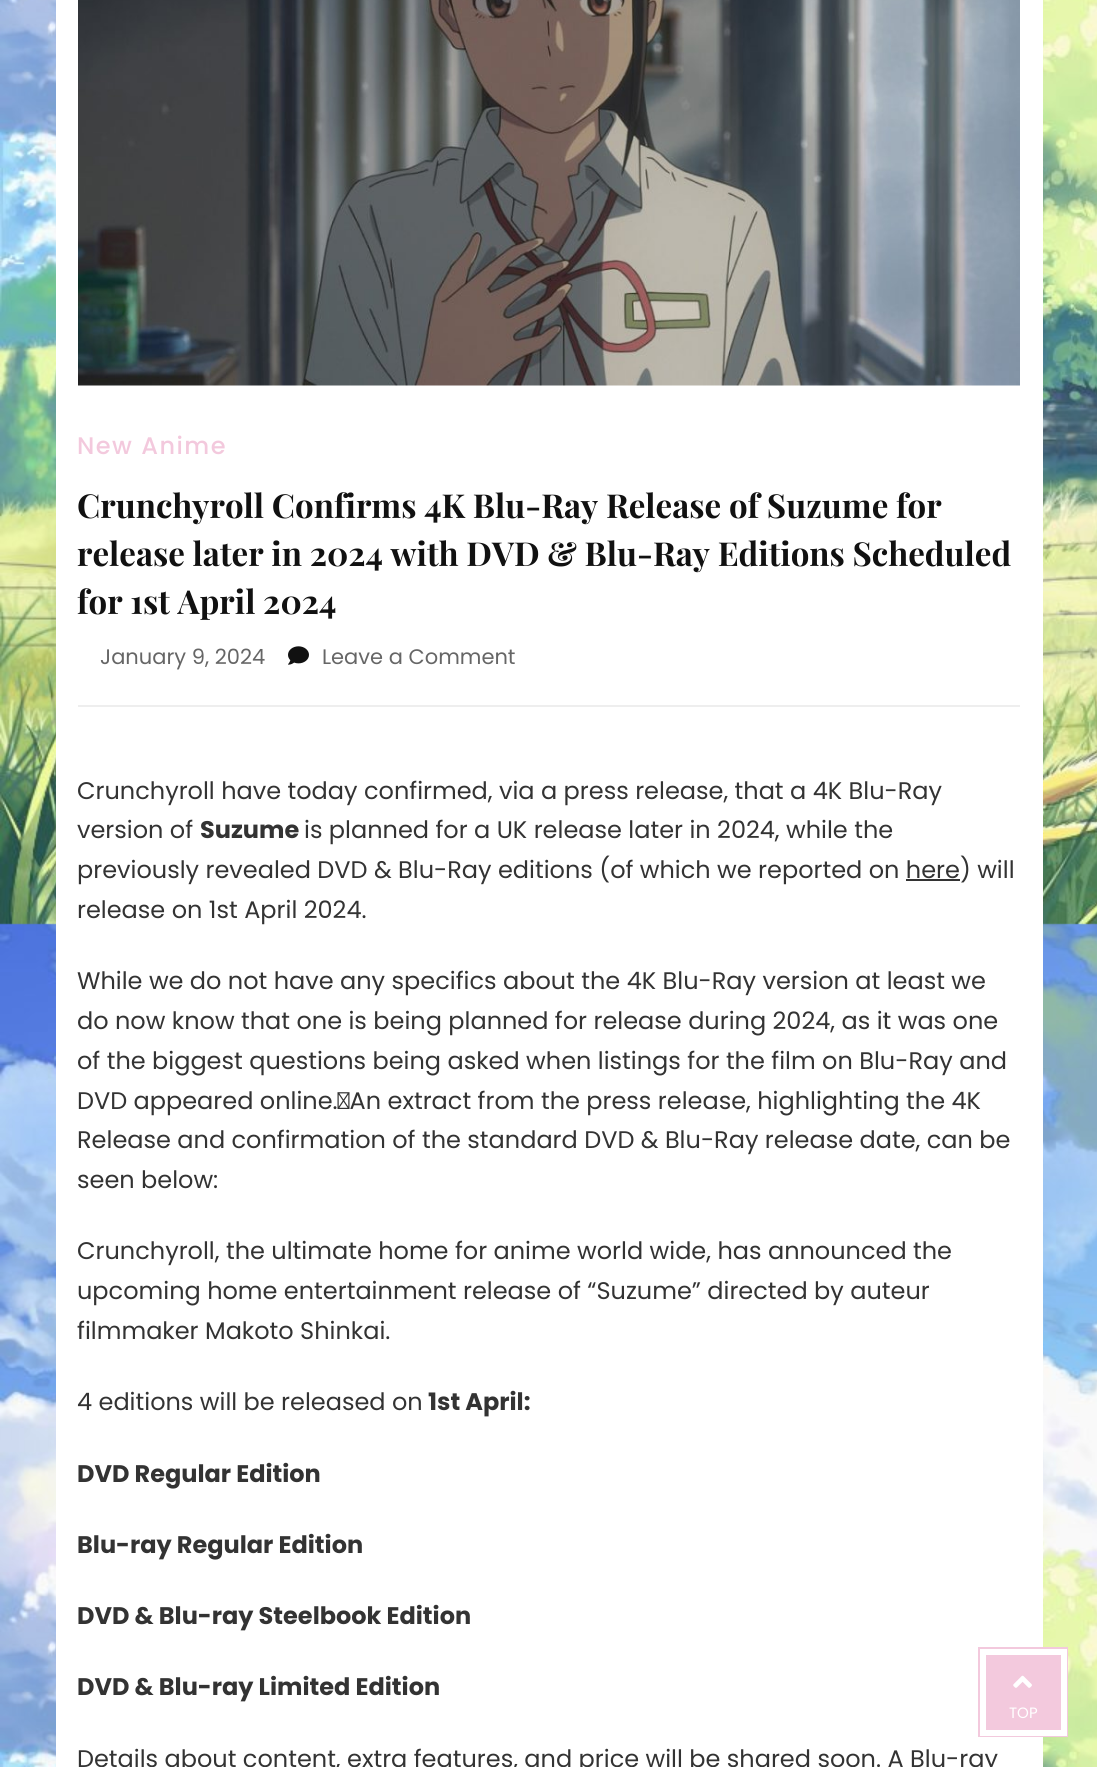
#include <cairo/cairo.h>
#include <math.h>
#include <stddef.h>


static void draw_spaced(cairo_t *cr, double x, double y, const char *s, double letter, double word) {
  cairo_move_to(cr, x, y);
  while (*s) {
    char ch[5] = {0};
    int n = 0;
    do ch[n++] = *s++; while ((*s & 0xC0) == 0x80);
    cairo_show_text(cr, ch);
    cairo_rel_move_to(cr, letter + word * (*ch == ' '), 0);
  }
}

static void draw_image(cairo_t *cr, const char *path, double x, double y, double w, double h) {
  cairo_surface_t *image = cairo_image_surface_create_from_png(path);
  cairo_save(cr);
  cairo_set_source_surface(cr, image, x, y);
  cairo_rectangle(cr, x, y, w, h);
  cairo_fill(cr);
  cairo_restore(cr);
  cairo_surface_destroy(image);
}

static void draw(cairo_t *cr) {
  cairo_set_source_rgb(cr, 1, 1, 1);
  cairo_paint(cr);
  draw_image(cr, "images/1.png", 0, 0, 1097, 1767);
  cairo_set_source_rgb(cr, 1, 1, 1);
  cairo_rectangle(cr, 56, 0, 987, 1767);
  cairo_fill(cr);
  draw_image(cr, "images/2.png", 78, 0, 942, 386);
  cairo_set_source_rgb(cr, 238 / 255.0, 238 / 255.0, 238 / 255.0);
  cairo_rectangle(cr, 78, 705, 942, 2);
  cairo_fill(cr);
  draw_image(cr, "images/3.png", 288, 646, 21, 19);
  cairo_set_source_rgb(cr, 51 / 255.0, 51 / 255.0, 51 / 255.0);
  cairo_rectangle(cr, 906, 879, 54, 2);
  cairo_fill(cr);
  cairo_set_source_rgb(cr, 243 / 255.0, 201 / 255.0, 221 / 255.0);
  cairo_rectangle(cr, 978, 1647, 90, 90);
  cairo_fill(cr);
  draw_image(cr, "images/4.png", 1013, 1675, 19, 13);
  cairo_rectangle(cr, 983, 1652, 81, 81);
  cairo_set_source_rgb(cr, 1, 1, 1);
  cairo_set_line_width(cr, 6);
  cairo_stroke(cr);
  cairo_select_font_face(cr, "Poppins Medium", CAIRO_FONT_SLANT_NORMAL, CAIRO_FONT_WEIGHT_NORMAL);
  cairo_set_font_size(cr, 24);
  cairo_set_source_rgb(cr, 243 / 255.0, 201 / 255.0, 221 / 255.0);
  draw_spaced(cr, 77, 454, "New Anime", 1.5, 0);
  cairo_select_font_face(cr, "Playfair Display", CAIRO_FONT_SLANT_NORMAL, CAIRO_FONT_WEIGHT_BOLD);
  cairo_set_font_size(cr, 33);
  cairo_set_source_rgb(cr, 17 / 255.0, 17 / 255.0, 17 / 255.0);
  cairo_move_to(cr, 77, 518);
  cairo_show_text(cr, "Crunchyroll Confirms 4K Blu-Ray Release of Suzume for");
  cairo_move_to(cr, 77, 566);
  cairo_show_text(cr, "release later in 2024 with DVD & Blu-Ray Editions Scheduled");
  cairo_move_to(cr, 77, 614);
  cairo_show_text(cr, "for 1st April 2024");
  cairo_select_font_face(cr, "Poppins", CAIRO_FONT_SLANT_NORMAL, CAIRO_FONT_WEIGHT_NORMAL);
  cairo_set_font_size(cr, 21);
  cairo_set_source_rgb(cr, 102 / 255.0, 102 / 255.0, 102 / 255.0);
  cairo_move_to(cr, 100, 664);
  cairo_show_text(cr, "January 9, 2024");
  cairo_move_to(cr, 322, 664);
  cairo_show_text(cr, "Leave a Comment");
  cairo_set_font_size(cr, 24);
  cairo_set_source_rgb(cr, 51 / 255.0, 51 / 255.0, 51 / 255.0);
  cairo_move_to(cr, 77, 799);
  cairo_show_text(cr, "Crunchyroll have today confirmed, via a press release, that a 4K Blu-Ray");
  cairo_move_to(cr, 77, 838);
  cairo_show_text(cr, "version of");
  cairo_select_font_face(cr, "Poppins", CAIRO_FONT_SLANT_NORMAL, CAIRO_FONT_WEIGHT_BOLD);
  cairo_move_to(cr, 200, 838);
  cairo_show_text(cr, "Suzume");
  cairo_select_font_face(cr, "Poppins", CAIRO_FONT_SLANT_NORMAL, CAIRO_FONT_WEIGHT_NORMAL);
  cairo_move_to(cr, 304, 838);
  cairo_show_text(cr, "is planned for a UK release later in 2024, while the");
  cairo_move_to(cr, 77, 878);
  cairo_show_text(cr, "previously revealed DVD & Blu-Ray editions (of which we reported on here) will");
  cairo_move_to(cr, 77, 918);
  cairo_show_text(cr, "release on 1st April 2024.");
  cairo_move_to(cr, 77, 989);
  cairo_show_text(cr, "While we do not have any specifics about the 4K Blu-Ray version at least we");
  cairo_move_to(cr, 77, 1029);
  cairo_show_text(cr, "do now know that one is being planned for release during 2024, as it was one");
  cairo_move_to(cr, 77, 1069);
  cairo_show_text(cr, "of the biggest questions being asked when listings for the film on Blu-Ray and");
  cairo_move_to(cr, 77, 1109);
  cairo_show_text(cr, "DVD appeared online. An extract from the press release, highlighting the 4K");
  cairo_move_to(cr, 77, 1148);
  cairo_show_text(cr, "Release and confirmation of the standard DVD & Blu-Ray release date, can be");
  cairo_move_to(cr, 77, 1188);
  cairo_show_text(cr, "seen below:");
  cairo_move_to(cr, 77, 1259);
  cairo_show_text(cr, "Crunchyroll, the ultimate home for anime world wide, has announced the");
  cairo_move_to(cr, 77, 1299);
  cairo_show_text(cr, "upcoming home entertainment release of “Suzume” directed by auteur");
  cairo_move_to(cr, 77, 1339);
  cairo_show_text(cr, "filmmaker Makoto Shinkai.");
  cairo_move_to(cr, 77, 1410);
  cairo_show_text(cr, "4 editions will be released on");
  cairo_select_font_face(cr, "Poppins", CAIRO_FONT_SLANT_NORMAL, CAIRO_FONT_WEIGHT_BOLD);
  cairo_move_to(cr, 428, 1410);
  cairo_show_text(cr, "1st April:");
  cairo_move_to(cr, 77, 1482);
  cairo_show_text(cr, "DVD Regular Edition");
  cairo_move_to(cr, 77, 1553);
  cairo_show_text(cr, "Blu-ray Regular Edition");
  cairo_move_to(cr, 77, 1624);
  cairo_show_text(cr, "DVD & Blu-ray Steelbook Edition");
  cairo_move_to(cr, 77, 1695);
  cairo_show_text(cr, "DVD & Blu-ray Limited Edition");
  cairo_select_font_face(cr, "Poppins", CAIRO_FONT_SLANT_NORMAL, CAIRO_FONT_WEIGHT_NORMAL);
  cairo_move_to(cr, 77, 1767);
  cairo_show_text(cr, "Details about content, extra features, and price will be shared soon. A Blu-ray");
  cairo_set_font_size(cr, 15);
  cairo_set_source_rgb(cr, 1, 1, 1);
  cairo_move_to(cr, 1009, 1718);
  cairo_show_text(cr, "TOP");
}

int main(void) {
  cairo_surface_t *surface = cairo_image_surface_create(CAIRO_FORMAT_RGB24, 1097, 1767);
  cairo_t *cr = cairo_create(surface);
  cairo_font_options_t *options = cairo_font_options_create();
  cairo_font_options_set_hint_metrics(options, CAIRO_HINT_METRICS_OFF);
  cairo_font_options_set_hint_style(options, CAIRO_HINT_STYLE_NONE);
  cairo_set_font_options(cr, options);
  cairo_set_miter_limit(cr, 4);
  draw(cr);
  cairo_surface_write_to_png(surface, "out.png");
  cairo_font_options_destroy(options);
  cairo_destroy(cr);
  cairo_surface_destroy(surface);
  return 0;
}
